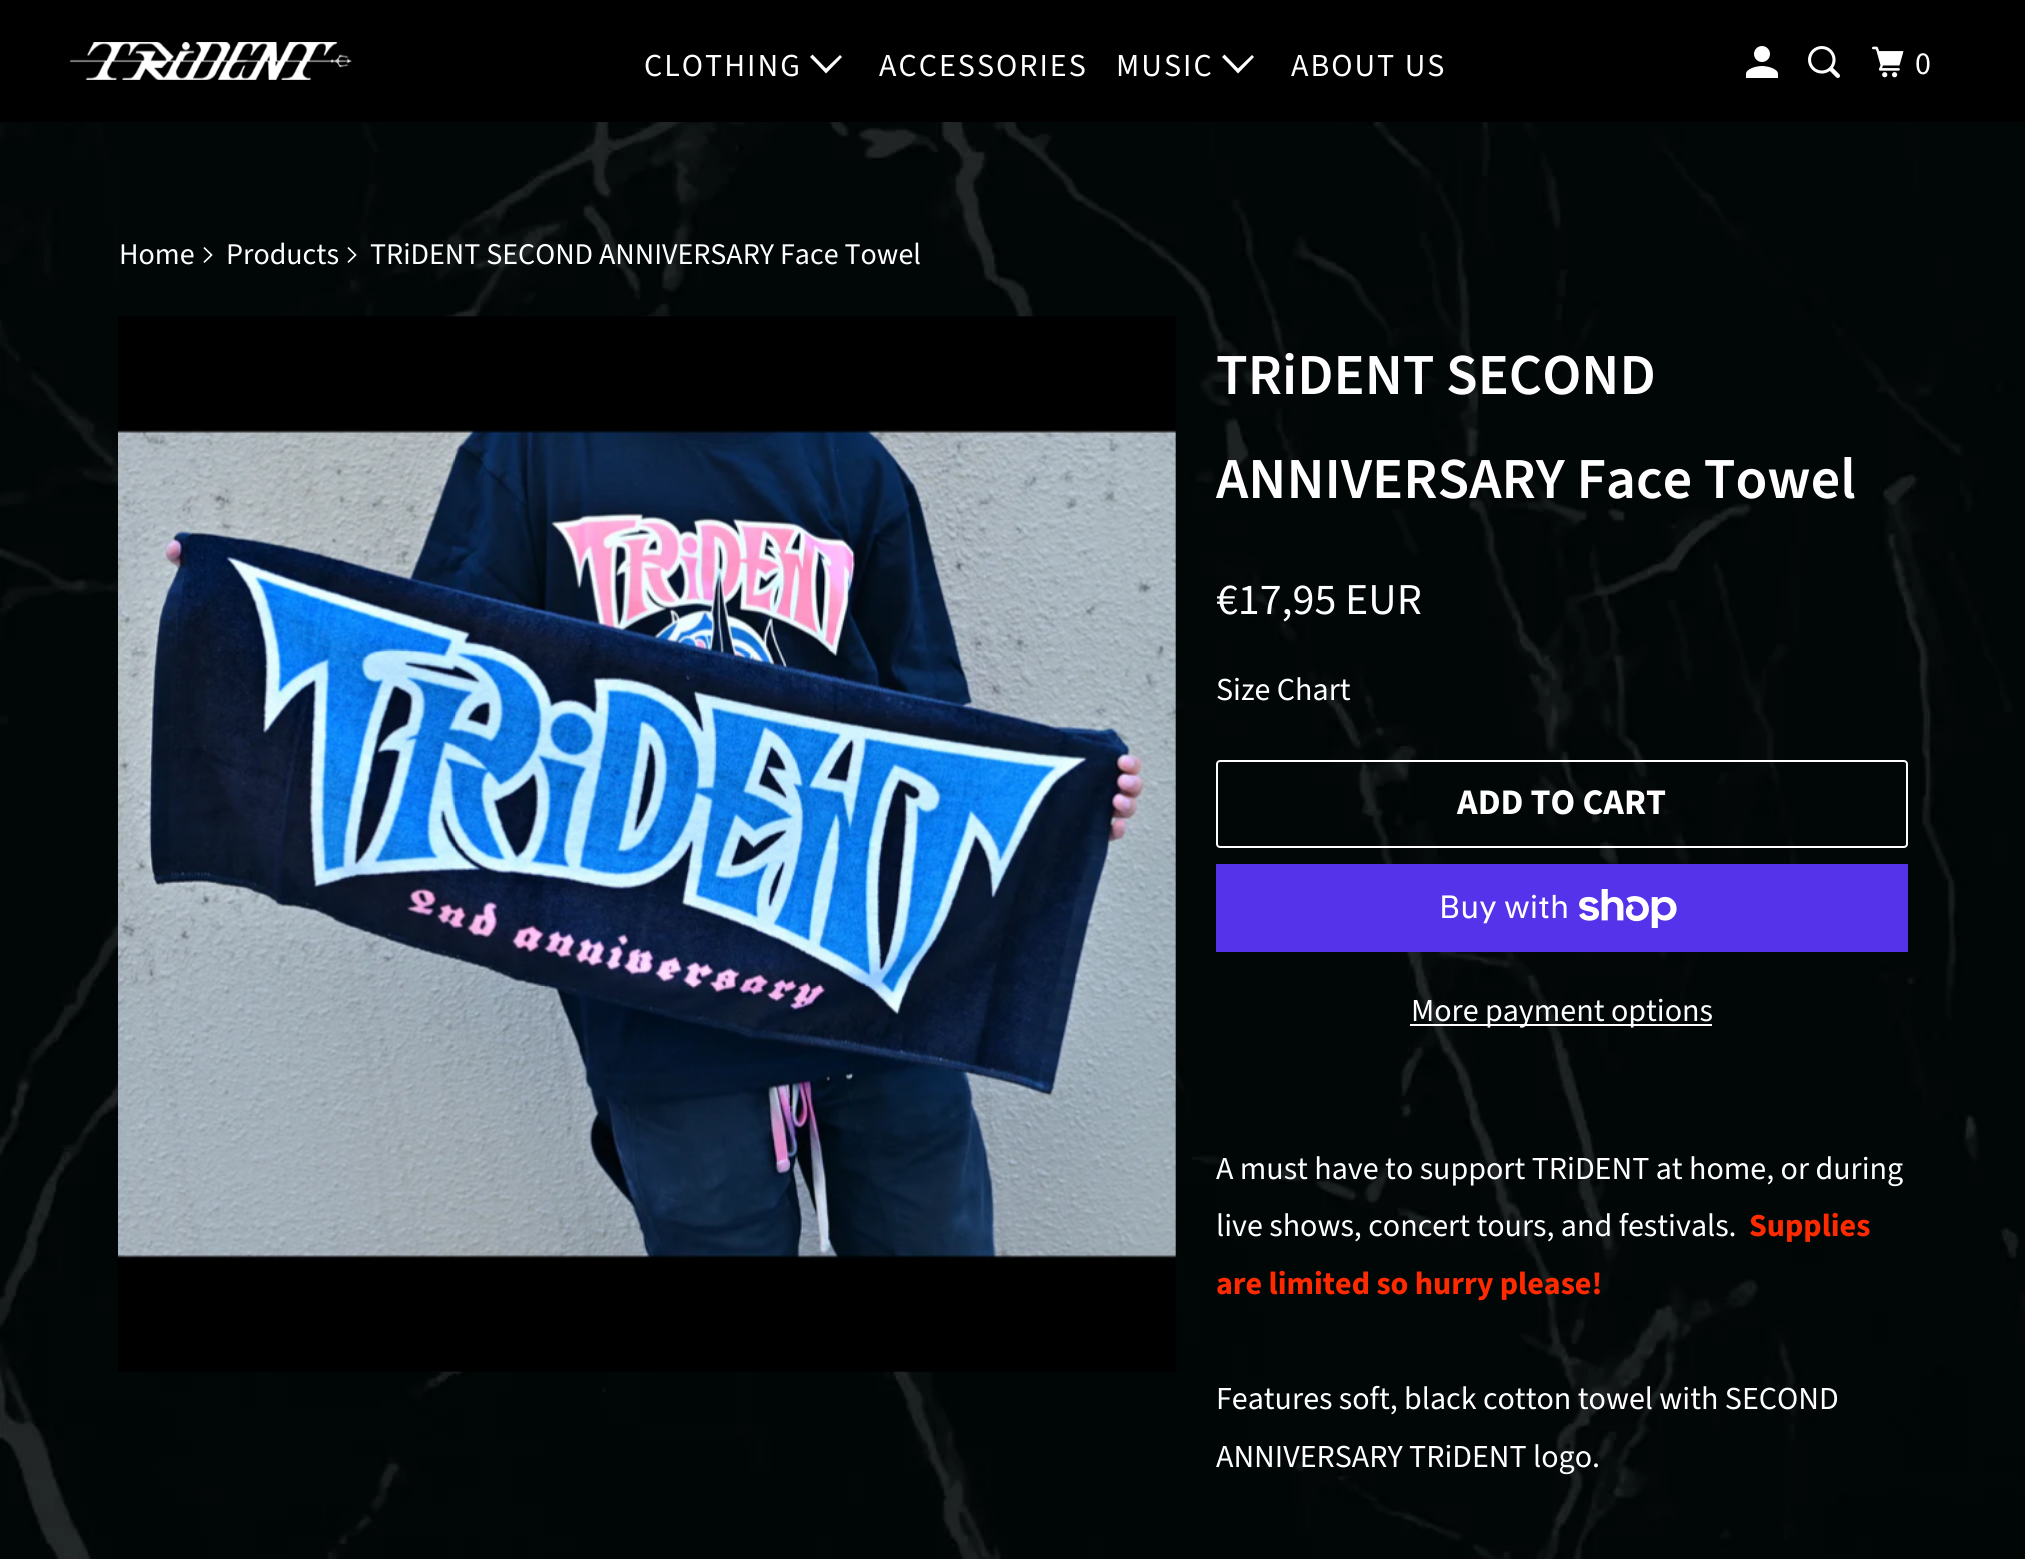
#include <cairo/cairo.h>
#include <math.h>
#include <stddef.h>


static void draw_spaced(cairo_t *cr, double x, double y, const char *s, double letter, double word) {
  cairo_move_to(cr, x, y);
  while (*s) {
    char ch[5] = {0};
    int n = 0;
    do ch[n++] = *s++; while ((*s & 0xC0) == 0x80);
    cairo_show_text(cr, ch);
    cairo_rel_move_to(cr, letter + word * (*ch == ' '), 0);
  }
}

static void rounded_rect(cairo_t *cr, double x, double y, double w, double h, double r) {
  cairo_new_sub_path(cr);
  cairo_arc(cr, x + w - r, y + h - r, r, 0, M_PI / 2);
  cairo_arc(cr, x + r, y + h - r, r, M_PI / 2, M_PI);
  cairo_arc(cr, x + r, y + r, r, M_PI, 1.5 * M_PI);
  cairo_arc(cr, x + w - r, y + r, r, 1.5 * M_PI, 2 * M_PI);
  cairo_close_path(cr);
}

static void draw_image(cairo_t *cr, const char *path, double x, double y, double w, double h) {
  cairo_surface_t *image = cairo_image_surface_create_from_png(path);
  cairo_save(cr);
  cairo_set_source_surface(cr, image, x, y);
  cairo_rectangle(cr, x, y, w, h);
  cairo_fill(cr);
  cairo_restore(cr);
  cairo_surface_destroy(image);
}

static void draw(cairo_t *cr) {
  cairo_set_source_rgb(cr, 1, 1, 1);
  cairo_paint(cr);
  cairo_set_source_rgb(cr, 0, 0, 0);
  cairo_rectangle(cr, 0, 0, 2025, 122);
  cairo_fill(cr);
  draw_image(cr, "images/1.png", 70, 42, 282, 38);
  cairo_set_source_rgb(cr, 1, 1, 1);
  cairo_new_path(cr);
  cairo_move_to(cr, 818, 65);
  cairo_line_to(cr, 810, 57);
  cairo_line_to(cr, 812.5, 54.5);
  cairo_line_to(cr, 826, 68.5);
  cairo_line_to(cr, 840, 55);
  cairo_line_to(cr, 842, 57);
  cairo_line_to(cr, 826, 73.5);
  cairo_close_path(cr);
  cairo_fill(cr);
  cairo_new_path(cr);
  cairo_move_to(cr, 1230, 65);
  cairo_line_to(cr, 1222, 57);
  cairo_line_to(cr, 1224.5, 54.5);
  cairo_line_to(cr, 1238, 68.5);
  cairo_line_to(cr, 1252, 55);
  cairo_line_to(cr, 1254, 57);
  cairo_line_to(cr, 1238, 73.5);
  cairo_close_path(cr);
  cairo_fill(cr);
  draw_image(cr, "images/2.png", 1746, 46, 32, 32);
  draw_image(cr, "images/3.png", 1808, 46, 32, 32);
  draw_image(cr, "images/4.png", 1872, 46, 32, 32);
  draw_image(cr, "images/5.png", 0, 122, 2025, 1437);
  draw_image(cr, "images/6.png", 203, 247, 10, 16);
  draw_image(cr, "images/7.png", 347, 247, 10, 16);
  draw_image(cr, "images/8.png", 118, 316, 1058, 1056);
  rounded_rect(cr, 1217, 761, 690, 86, 3);
  cairo_stroke(cr);
  cairo_set_source_rgb(cr, 84 / 255.0, 51 / 255.0, 235 / 255.0);
  cairo_rectangle(cr, 1216, 864, 692, 88);
  cairo_fill(cr);
  draw_image(cr, "images/9.png", 1579, 889, 98, 39);
  cairo_set_source_rgb(cr, 1, 1, 1);
  cairo_rectangle(cr, 1410, 1024, 302, 2);
  cairo_fill(cr);
  cairo_select_font_face(cr, "Source Sans Pro", CAIRO_FONT_SLANT_NORMAL, CAIRO_FONT_WEIGHT_NORMAL);
  cairo_set_font_size(cr, 32);
  draw_spaced(cr, 644, 76, "CLOTHING", 2, 0);
  draw_spaced(cr, 879, 76, "ACCESSORIES", 2, 0);
  draw_spaced(cr, 1116, 76, "MUSIC", 2, 0);
  draw_spaced(cr, 1291, 76, "ABOUT US", 2, 0);
  draw_spaced(cr, 1915, 74, "0", 2, 0);
  cairo_set_font_size(cr, 30);
  cairo_move_to(cr, 119, 264);
  cairo_show_text(cr, "Home");
  cairo_move_to(cr, 226, 264);
  cairo_show_text(cr, "Products");
  cairo_move_to(cr, 370, 264);
  cairo_show_text(cr, "TRiDENT SECOND ANNIVERSARY Face Towel");
  cairo_select_font_face(cr, "Source Sans Pro SemiBold", CAIRO_FONT_SLANT_NORMAL, CAIRO_FONT_WEIGHT_NORMAL);
  cairo_set_font_size(cr, 58);
  cairo_move_to(cr, 1216, 394);
  cairo_show_text(cr, "TRiDENT SECOND");
  cairo_move_to(cr, 1216, 498);
  cairo_show_text(cr, "ANNIVERSARY Face Towel");
  cairo_select_font_face(cr, "Source Sans Pro", CAIRO_FONT_SLANT_NORMAL, CAIRO_FONT_WEIGHT_NORMAL);
  cairo_set_font_size(cr, 44);
  cairo_move_to(cr, 1216, 614);
  cairo_show_text(cr, "€17,95 EUR");
  cairo_set_font_size(cr, 32);
  cairo_move_to(cr, 1216, 700);
  cairo_show_text(cr, "Size Chart");
  cairo_select_font_face(cr, "Source Sans Pro", CAIRO_FONT_SLANT_NORMAL, CAIRO_FONT_WEIGHT_BOLD);
  cairo_set_font_size(cr, 36);
  cairo_move_to(cr, 1457, 814);
  cairo_show_text(cr, "ADD TO CART");
  cairo_select_font_face(cr, "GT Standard", CAIRO_FONT_SLANT_NORMAL, CAIRO_FONT_WEIGHT_NORMAL);
  cairo_set_font_size(cr, 32);
  cairo_move_to(cr, 1439, 918);
  cairo_show_text(cr, "Buy with");
  cairo_select_font_face(cr, "Source Sans Pro", CAIRO_FONT_SLANT_NORMAL, CAIRO_FONT_WEIGHT_NORMAL);
  cairo_move_to(cr, 1411, 1021);
  cairo_show_text(cr, "More payment options");
  cairo_move_to(cr, 1216, 1179);
  cairo_show_text(cr, "A must have to support TRiDENT at home, or during");
  cairo_move_to(cr, 1216, 1236);
  cairo_show_text(cr, "live shows, concert tours, and festivals.");
  cairo_select_font_face(cr, "Source Sans Pro", CAIRO_FONT_SLANT_NORMAL, CAIRO_FONT_WEIGHT_BOLD);
  cairo_set_source_rgb(cr, 1, 42 / 255.0, 0);
  cairo_move_to(cr, 1749, 1236);
  cairo_show_text(cr, "Supplies");
  cairo_move_to(cr, 1216, 1294);
  cairo_show_text(cr, "are limited so hurry please!");
  cairo_select_font_face(cr, "Source Sans Pro", CAIRO_FONT_SLANT_NORMAL, CAIRO_FONT_WEIGHT_NORMAL);
  cairo_set_source_rgb(cr, 1, 1, 1);
  cairo_move_to(cr, 1216, 1409);
  cairo_show_text(cr, "Features soft, black cotton towel with SECOND");
  cairo_move_to(cr, 1216, 1467);
  cairo_show_text(cr, "ANNIVERSARY TRiDENT logo.");
}

int main(void) {
  cairo_surface_t *surface = cairo_image_surface_create(CAIRO_FORMAT_RGB24, 2025, 1559);
  cairo_t *cr = cairo_create(surface);
  cairo_font_options_t *options = cairo_font_options_create();
  cairo_font_options_set_hint_metrics(options, CAIRO_HINT_METRICS_OFF);
  cairo_font_options_set_hint_style(options, CAIRO_HINT_STYLE_NONE);
  cairo_set_font_options(cr, options);
  cairo_set_miter_limit(cr, 4);
  draw(cr);
  cairo_surface_write_to_png(surface, "out.png");
  cairo_font_options_destroy(options);
  cairo_destroy(cr);
  cairo_surface_destroy(surface);
  return 0;
}
